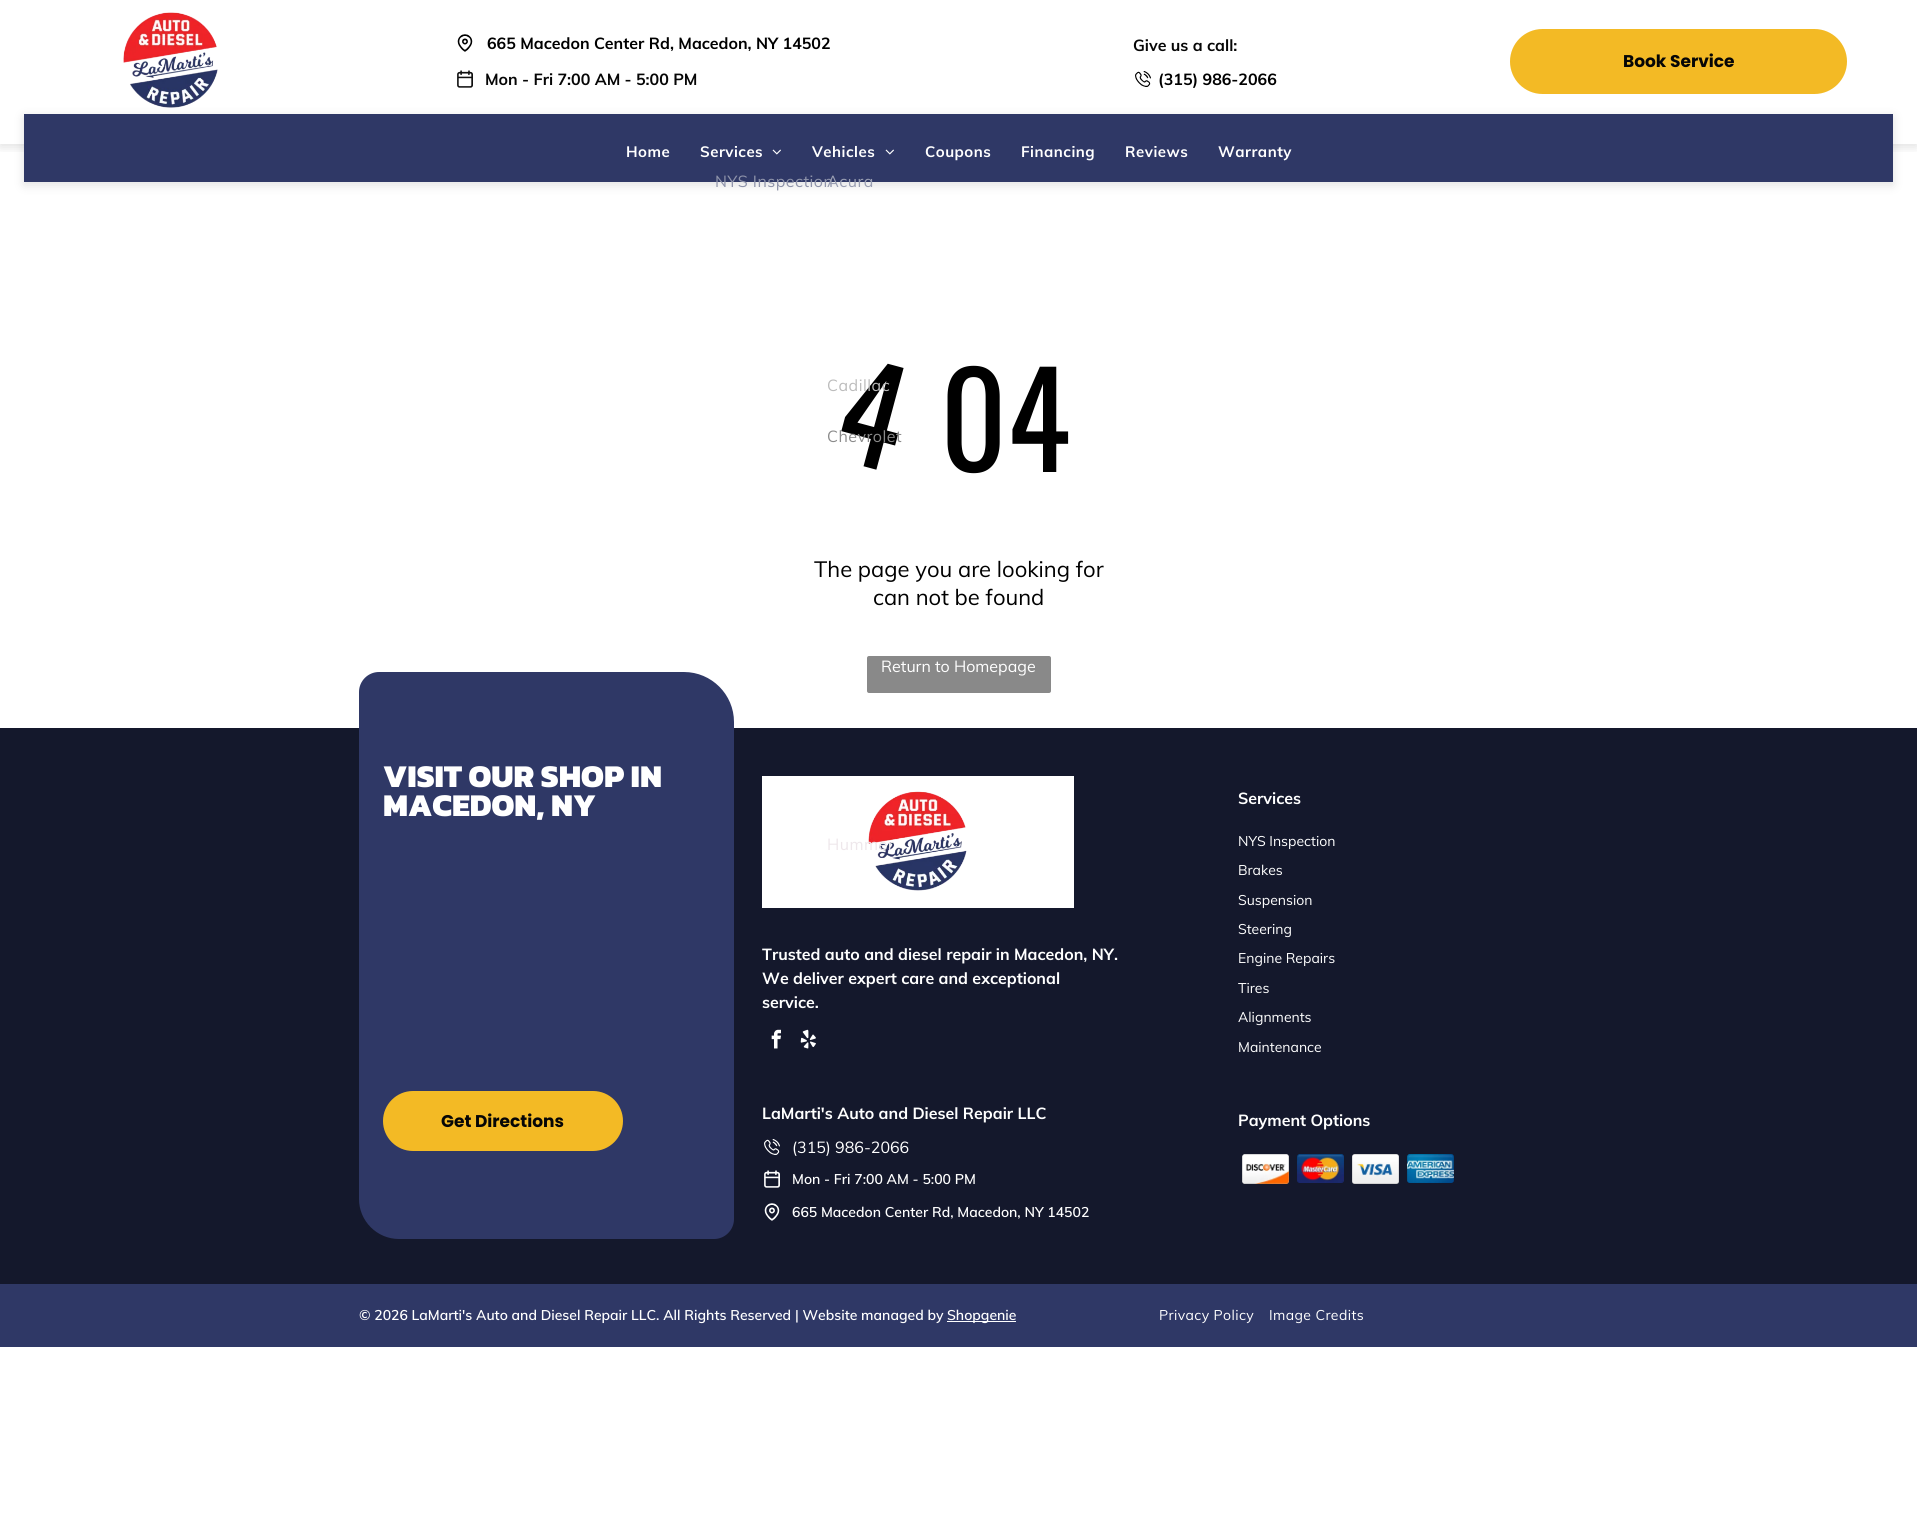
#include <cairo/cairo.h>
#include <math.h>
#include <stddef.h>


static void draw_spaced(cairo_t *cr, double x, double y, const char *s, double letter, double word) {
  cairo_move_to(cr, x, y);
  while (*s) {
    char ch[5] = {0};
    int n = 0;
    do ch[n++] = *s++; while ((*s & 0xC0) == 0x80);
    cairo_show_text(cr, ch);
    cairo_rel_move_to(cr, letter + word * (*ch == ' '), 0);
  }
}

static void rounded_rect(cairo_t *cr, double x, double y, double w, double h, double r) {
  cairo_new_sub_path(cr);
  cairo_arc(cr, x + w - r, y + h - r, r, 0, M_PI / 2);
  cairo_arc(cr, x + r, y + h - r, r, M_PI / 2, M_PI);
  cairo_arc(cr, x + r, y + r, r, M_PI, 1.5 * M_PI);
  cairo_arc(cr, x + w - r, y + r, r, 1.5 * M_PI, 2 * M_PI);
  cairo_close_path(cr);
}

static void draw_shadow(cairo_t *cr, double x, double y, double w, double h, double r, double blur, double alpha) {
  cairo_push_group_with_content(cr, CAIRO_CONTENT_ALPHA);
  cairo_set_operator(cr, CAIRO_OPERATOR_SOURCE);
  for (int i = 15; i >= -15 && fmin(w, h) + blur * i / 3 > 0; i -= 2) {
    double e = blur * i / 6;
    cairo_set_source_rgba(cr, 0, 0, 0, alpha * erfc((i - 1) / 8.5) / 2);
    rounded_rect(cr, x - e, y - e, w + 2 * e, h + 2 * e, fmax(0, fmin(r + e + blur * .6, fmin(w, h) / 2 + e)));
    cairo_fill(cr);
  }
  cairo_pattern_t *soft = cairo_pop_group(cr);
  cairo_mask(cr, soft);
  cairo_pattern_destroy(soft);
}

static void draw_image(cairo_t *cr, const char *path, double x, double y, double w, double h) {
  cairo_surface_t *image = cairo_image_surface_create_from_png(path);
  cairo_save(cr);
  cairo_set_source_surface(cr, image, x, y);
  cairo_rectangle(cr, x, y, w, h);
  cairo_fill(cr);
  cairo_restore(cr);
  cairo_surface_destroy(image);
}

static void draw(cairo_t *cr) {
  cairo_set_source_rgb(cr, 1, 1, 1);
  cairo_paint(cr);
  cairo_save(cr);
  cairo_rectangle(cr, 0, 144, 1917, 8);
  cairo_clip(cr);
  cairo_set_source_rgb(cr, 0, 0, 0);
  draw_shadow(cr, 0, 3, 1917, 144, 0, 5.5, 0.12);
  cairo_restore(cr);
  draw_image(cr, "images/1.png", 123, 12, 95, 96);
  draw_image(cr, "images/2.png", 457, 34, 16, 18);
  draw_image(cr, "images/3.png", 457, 70, 16, 18);
  draw_image(cr, "images/4.png", 1135, 71, 16, 16);
  cairo_set_source_rgb(cr, 243 / 255.0, 186 / 255.0, 37 / 255.0);
  rounded_rect(cr, 1511, 30, 335, 63, 31.5);
  cairo_fill_preserve(cr);
  cairo_stroke(cr);
  cairo_set_source_rgb(cr, 0, 0, 0);
  draw_shadow(cr, 24, 117, 1869, 68, 0, 5.5, 0.12);
  cairo_set_source_rgb(cr, 47 / 255.0, 56 / 255.0, 102 / 255.0);
  cairo_rectangle(cr, 24, 114, 1869, 68);
  cairo_fill(cr);
  draw_image(cr, "images/5.png", 772, 149, 9, 6);
  draw_image(cr, "images/5.png", 885, 149, 9, 6);
  cairo_set_source_rgb(cr, 137 / 255.0, 137 / 255.0, 137 / 255.0);
  rounded_rect(cr, 867, 656, 184, 37, 2);
  cairo_fill(cr);
  cairo_set_source_rgb(cr, 20 / 255.0, 24 / 255.0, 44 / 255.0);
  cairo_rectangle(cr, 0, 728, 1917, 556);
  cairo_fill(cr);
  cairo_set_source_rgb(cr, 47 / 255.0, 56 / 255.0, 102 / 255.0);
  cairo_new_path(cr);
  cairo_move_to(cr, 379, 672);
  cairo_line_to(cr, 684, 672);
  cairo_curve_to(cr, 711.5, 672, 734, 694.5, 734, 722);
  cairo_line_to(cr, 734, 1219);
  cairo_curve_to(cr, 734, 1230, 725, 1239, 714, 1239);
  cairo_line_to(cr, 399, 1239);
  cairo_curve_to(cr, 377, 1239, 359, 1221, 359, 1199);
  cairo_line_to(cr, 359, 692);
  cairo_curve_to(cr, 359, 681, 368, 672, 379, 672);
  cairo_close_path(cr);
  cairo_fill(cr);
  cairo_set_source_rgb(cr, 243 / 255.0, 186 / 255.0, 37 / 255.0);
  rounded_rect(cr, 384, 1092, 238, 58, 29);
  cairo_fill_preserve(cr);
  cairo_stroke(cr);
  cairo_set_source_rgb(cr, 1, 1, 1);
  cairo_rectangle(cr, 762, 776, 312, 132);
  cairo_fill(cr);
  draw_image(cr, "images/6.png", 868, 791, 99, 100);
  draw_image(cr, "images/7.png", 771, 1029, 10, 20);
  draw_image(cr, "images/8.png", 800, 1029, 16, 20);
  draw_image(cr, "images/9.png", 764, 1139, 16, 16);
  draw_image(cr, "images/10.png", 764, 1170, 16, 18);
  draw_image(cr, "images/11.png", 764, 1203, 16, 18);
  draw_image(cr, "images/12.png", 1242, 1154, 47, 30);
  draw_image(cr, "images/13.png", 1297, 1154, 47, 29);
  draw_image(cr, "images/14.png", 1352, 1154, 47, 30);
  draw_image(cr, "images/15.png", 1407, 1154, 47, 29);
  cairo_set_source_rgb(cr, 47 / 255.0, 56 / 255.0, 102 / 255.0);
  cairo_rectangle(cr, 0, 1284, 1917, 63);
  cairo_fill(cr);
  cairo_set_source_rgb(cr, 1, 1, 1);
  cairo_rectangle(cr, 947, 1321, 69, 1);
  cairo_fill(cr);
  cairo_select_font_face(cr, "Muli", CAIRO_FONT_SLANT_NORMAL, CAIRO_FONT_WEIGHT_BOLD);
  cairo_set_font_size(cr, 16);
  cairo_set_source_rgb(cr, 0, 0, 0);
  cairo_move_to(cr, 487, 49);
  cairo_show_text(cr, "665 Macedon Center Rd, Macedon, NY 14502");
  cairo_set_source_rgb(cr, 6 / 255.0, 6 / 255.0, 6 / 255.0);
  cairo_move_to(cr, 485, 85);
  cairo_show_text(cr, "Mon - Fri 7:00 AM - 5:00 PM");
  cairo_move_to(cr, 1133, 51);
  cairo_show_text(cr, "Give us a call:");
  cairo_set_source_rgb(cr, 0, 0, 0);
  cairo_move_to(cr, 1158, 85);
  cairo_show_text(cr, "(315) 986-2066");
  cairo_select_font_face(cr, "Poppins", CAIRO_FONT_SLANT_NORMAL, CAIRO_FONT_WEIGHT_BOLD);
  cairo_set_font_size(cr, 17);
  cairo_set_source_rgb(cr, 6 / 255.0, 6 / 255.0, 6 / 255.0);
  cairo_move_to(cr, 1623, 67);
  cairo_show_text(cr, "Book Service");
  cairo_select_font_face(cr, "Muli", CAIRO_FONT_SLANT_NORMAL, CAIRO_FONT_WEIGHT_BOLD);
  cairo_set_font_size(cr, 15);
  cairo_set_source_rgb(cr, 1, 1, 1);
  draw_spaced(cr, 626, 157, "Home", 0.5, 0);
  draw_spaced(cr, 700, 157, "Services", 0.5, 0);
  cairo_select_font_face(cr, "Muli", CAIRO_FONT_SLANT_NORMAL, CAIRO_FONT_WEIGHT_NORMAL);
  cairo_set_font_size(cr, 16);
  cairo_set_source_rgb(cr, 142 / 255.0, 147 / 255.0, 170 / 255.0);
  draw_spaced(cr, 715, 187, "NYS Inspection", 0.5, 0);
  cairo_select_font_face(cr, "Muli", CAIRO_FONT_SLANT_NORMAL, CAIRO_FONT_WEIGHT_BOLD);
  cairo_set_font_size(cr, 15);
  cairo_set_source_rgb(cr, 1, 1, 1);
  draw_spaced(cr, 812, 157, "Vehicles", 0.5, 0);
  cairo_select_font_face(cr, "Muli", CAIRO_FONT_SLANT_NORMAL, CAIRO_FONT_WEIGHT_NORMAL);
  cairo_set_font_size(cr, 16);
  cairo_set_source_rgb(cr, 153 / 255.0, 158 / 255.0, 178 / 255.0);
  draw_spaced(cr, 827, 187, "Acura", 0.5, 0);
  cairo_set_source_rgb(cr, 238 / 255.0, 231 / 255.0, 235 / 255.0);
  draw_spaced(cr, 827, 850, "Hummer", 0.5, 0);
  cairo_select_font_face(cr, "Muli", CAIRO_FONT_SLANT_NORMAL, CAIRO_FONT_WEIGHT_BOLD);
  cairo_set_font_size(cr, 15);
  cairo_set_source_rgb(cr, 1, 1, 1);
  draw_spaced(cr, 925, 157, "Coupons", 0.5, 0);
  draw_spaced(cr, 1021, 157, "Financing", 0.5, 0);
  draw_spaced(cr, 1125, 157, "Reviews", 0.5, 0);
  draw_spaced(cr, 1218, 157, "Warranty", 0.5, 0);
  cairo_select_font_face(cr, "Oswald", CAIRO_FONT_SLANT_NORMAL, CAIRO_FONT_WEIGHT_NORMAL);
  cairo_set_font_size(cr, 130);
  cairo_set_source_rgb(cr, 0, 0, 0);
  cairo_save(cr);
  cairo_translate(cr, 829, 457);
  cairo_rotate(cr, 15 * M_PI / 180);
  cairo_move_to(cr, 0, 0);
  cairo_show_text(cr, "4");
  cairo_restore(cr);
  cairo_select_font_face(cr, "Muli", CAIRO_FONT_SLANT_NORMAL, CAIRO_FONT_WEIGHT_NORMAL);
  cairo_set_font_size(cr, 16);
  cairo_set_source_rgb(cr, 139 / 255.0, 139 / 255.0, 139 / 255.0);
  draw_spaced(cr, 827, 442, "Chevrolet", 0.5, 0);
  cairo_set_source_rgb(cr, 188 / 255.0, 188 / 255.0, 188 / 255.0);
  draw_spaced(cr, 827, 391, "Cadillac", 0.5, 0);
  cairo_select_font_face(cr, "Oswald", CAIRO_FONT_SLANT_NORMAL, CAIRO_FONT_WEIGHT_NORMAL);
  cairo_set_font_size(cr, 130);
  cairo_set_source_rgb(cr, 0, 0, 0);
  cairo_move_to(cr, 940, 472);
  cairo_show_text(cr, "04");
  cairo_select_font_face(cr, "Muli", CAIRO_FONT_SLANT_NORMAL, CAIRO_FONT_WEIGHT_NORMAL);
  cairo_set_font_size(cr, 22);
  cairo_move_to(cr, 814, 577);
  cairo_show_text(cr, "The page you are looking for");
  cairo_move_to(cr, 873, 605);
  cairo_show_text(cr, "can not be found");
  cairo_set_font_size(cr, 16);
  cairo_set_source_rgb(cr, 1, 1, 1);
  cairo_move_to(cr, 881, 672);
  cairo_show_text(cr, "Return to Homepage");
  cairo_select_font_face(cr, "Kanit ExtraBold", CAIRO_FONT_SLANT_NORMAL, CAIRO_FONT_WEIGHT_NORMAL);
  cairo_set_font_size(cr, 32);
  cairo_move_to(cr, 383, 787);
  cairo_show_text(cr, "VISIT OUR SHOP IN");
  cairo_move_to(cr, 383, 816);
  cairo_show_text(cr, "MACEDON, NY");
  cairo_select_font_face(cr, "Poppins", CAIRO_FONT_SLANT_NORMAL, CAIRO_FONT_WEIGHT_BOLD);
  cairo_set_font_size(cr, 17);
  cairo_set_source_rgb(cr, 6 / 255.0, 6 / 255.0, 6 / 255.0);
  cairo_move_to(cr, 441, 1127);
  cairo_show_text(cr, "Get Directions");
  cairo_select_font_face(cr, "Muli", CAIRO_FONT_SLANT_NORMAL, CAIRO_FONT_WEIGHT_BOLD);
  cairo_set_font_size(cr, 16);
  cairo_set_source_rgb(cr, 1, 1, 1);
  cairo_move_to(cr, 762, 960);
  cairo_show_text(cr, "Trusted auto and diesel repair in Macedon, NY.");
  cairo_move_to(cr, 762, 984);
  cairo_show_text(cr, "We deliver expert care and exceptional");
  cairo_move_to(cr, 762, 1008);
  cairo_show_text(cr, "service.");
  cairo_move_to(cr, 762, 1119);
  cairo_show_text(cr, "LaMarti's Auto and Diesel Repair LLC");
  cairo_select_font_face(cr, "Muli", CAIRO_FONT_SLANT_NORMAL, CAIRO_FONT_WEIGHT_NORMAL);
  cairo_move_to(cr, 792, 1153);
  cairo_show_text(cr, "(315) 986-2066");
  cairo_select_font_face(cr, "Muli SemiBold", CAIRO_FONT_SLANT_NORMAL, CAIRO_FONT_WEIGHT_NORMAL);
  cairo_set_font_size(cr, 14);
  cairo_move_to(cr, 792, 1184);
  cairo_show_text(cr, "Mon - Fri 7:00 AM - 5:00 PM");
  cairo_move_to(cr, 792, 1217);
  cairo_show_text(cr, "665 Macedon Center Rd, Macedon, NY 14502");
  cairo_select_font_face(cr, "Muli", CAIRO_FONT_SLANT_NORMAL, CAIRO_FONT_WEIGHT_BOLD);
  cairo_set_font_size(cr, 16);
  cairo_move_to(cr, 1238, 804);
  cairo_show_text(cr, "Services");
  cairo_select_font_face(cr, "Muli", CAIRO_FONT_SLANT_NORMAL, CAIRO_FONT_WEIGHT_NORMAL);
  cairo_set_font_size(cr, 14);
  cairo_move_to(cr, 1238, 846);
  cairo_show_text(cr, "NYS Inspection");
  cairo_move_to(cr, 1238, 875);
  cairo_show_text(cr, "Brakes");
  cairo_move_to(cr, 1238, 905);
  cairo_show_text(cr, "Suspension");
  cairo_move_to(cr, 1238, 934);
  cairo_show_text(cr, "Steering");
  cairo_move_to(cr, 1238, 963);
  cairo_show_text(cr, "Engine Repairs");
  cairo_move_to(cr, 1238, 993);
  cairo_show_text(cr, "Tires");
  cairo_move_to(cr, 1238, 1022);
  cairo_show_text(cr, "Alignments");
  cairo_move_to(cr, 1238, 1052);
  cairo_show_text(cr, "Maintenance");
  cairo_select_font_face(cr, "Muli", CAIRO_FONT_SLANT_NORMAL, CAIRO_FONT_WEIGHT_BOLD);
  cairo_set_font_size(cr, 16);
  cairo_move_to(cr, 1238, 1126);
  cairo_show_text(cr, "Payment Options");
  cairo_select_font_face(cr, "Muli SemiBold", CAIRO_FONT_SLANT_NORMAL, CAIRO_FONT_WEIGHT_NORMAL);
  cairo_set_font_size(cr, 14);
  cairo_move_to(cr, 359, 1320);
  cairo_show_text(cr, "© 2026 LaMarti's Auto and Diesel Repair LLC. All Rights Reserved | Website managed by");
  cairo_move_to(cr, 947, 1320);
  cairo_show_text(cr, "Shopgenie");
  cairo_select_font_face(cr, "Muli", CAIRO_FONT_SLANT_NORMAL, CAIRO_FONT_WEIGHT_NORMAL);
  draw_spaced(cr, 1159, 1320, "Privacy Policy", 0.4, 0);
  draw_spaced(cr, 1269, 1320, "Image Credits", 0.4, 0);
}

int main(void) {
  cairo_surface_t *surface = cairo_image_surface_create(CAIRO_FORMAT_RGB24, 1917, 1516);
  cairo_t *cr = cairo_create(surface);
  cairo_font_options_t *options = cairo_font_options_create();
  cairo_font_options_set_hint_metrics(options, CAIRO_HINT_METRICS_OFF);
  cairo_font_options_set_hint_style(options, CAIRO_HINT_STYLE_NONE);
  cairo_set_font_options(cr, options);
  cairo_set_miter_limit(cr, 4);
  draw(cr);
  cairo_surface_write_to_png(surface, "out.png");
  cairo_font_options_destroy(options);
  cairo_destroy(cr);
  cairo_surface_destroy(surface);
  return 0;
}
